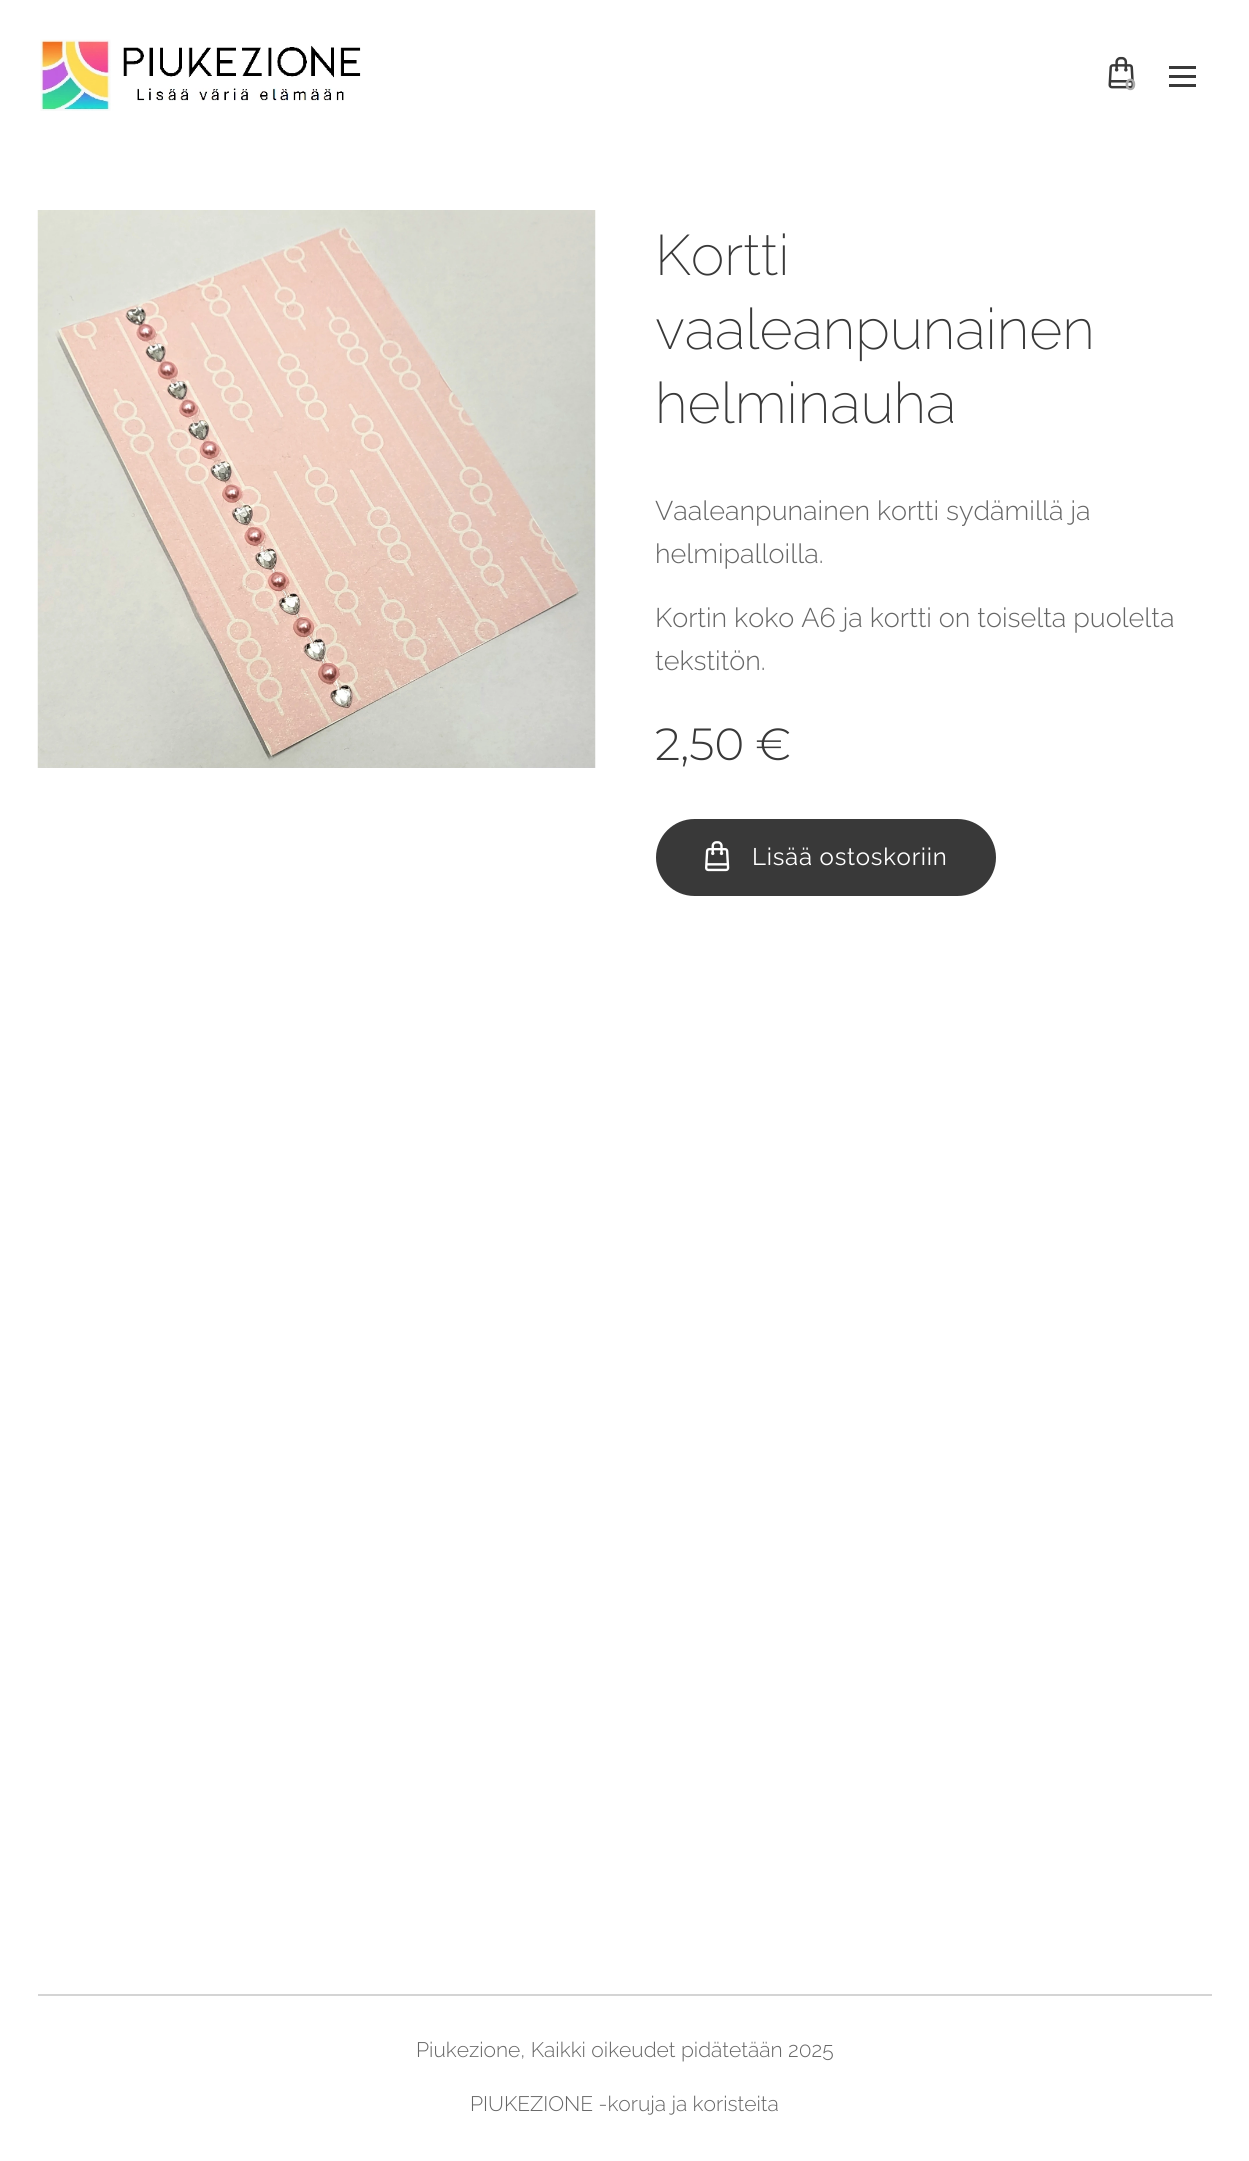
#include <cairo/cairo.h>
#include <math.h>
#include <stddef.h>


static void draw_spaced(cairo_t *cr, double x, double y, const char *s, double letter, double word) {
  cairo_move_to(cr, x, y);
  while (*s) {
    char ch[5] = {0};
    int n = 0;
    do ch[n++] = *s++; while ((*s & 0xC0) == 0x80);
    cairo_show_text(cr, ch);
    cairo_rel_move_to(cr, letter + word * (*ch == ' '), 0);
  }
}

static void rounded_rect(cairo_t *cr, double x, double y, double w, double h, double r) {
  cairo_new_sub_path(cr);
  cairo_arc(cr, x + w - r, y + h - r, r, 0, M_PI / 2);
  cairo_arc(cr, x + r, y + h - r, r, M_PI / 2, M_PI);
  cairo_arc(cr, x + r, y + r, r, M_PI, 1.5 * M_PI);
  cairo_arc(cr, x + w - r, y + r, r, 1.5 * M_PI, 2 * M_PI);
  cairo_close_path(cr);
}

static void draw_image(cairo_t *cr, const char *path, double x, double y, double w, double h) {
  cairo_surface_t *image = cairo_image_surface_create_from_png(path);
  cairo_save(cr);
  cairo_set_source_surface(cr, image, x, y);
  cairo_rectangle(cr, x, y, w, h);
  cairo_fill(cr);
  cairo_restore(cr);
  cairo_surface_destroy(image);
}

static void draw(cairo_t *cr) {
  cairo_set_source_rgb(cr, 1, 1, 1);
  cairo_paint(cr);
  draw_image(cr, "images/1.png", 40, 39, 321, 72);
  draw_image(cr, "images/2.png", 1108, 56, 26, 33);
  cairo_set_source_rgb(cr, 57 / 255.0, 57 / 255.0, 57 / 255.0);
  cairo_rectangle(cr, 1169, 75, 27, 3);
  cairo_fill(cr);
  cairo_rectangle(cr, 1169, 66, 27, 3);
  cairo_fill(cr);
  cairo_rectangle(cr, 1169, 84, 27, 3);
  cairo_fill(cr);
  draw_image(cr, "images/3.png", 37, 210, 559, 558);
  rounded_rect(cr, 657, 820, 338, 75, 37.5);
  cairo_fill_preserve(cr);
  cairo_stroke(cr);
  draw_image(cr, "images/4.png", 705, 841, 25, 31);
  cairo_set_source_rgb(cr, 212 / 255.0, 212 / 255.0, 212 / 255.0);
  cairo_rectangle(cr, 38, 1994, 1174, 2);
  cairo_fill(cr);
  cairo_select_font_face(cr, "Montserrat", CAIRO_FONT_SLANT_NORMAL, CAIRO_FONT_WEIGHT_BOLD);
  cairo_set_font_size(cr, 16);
  cairo_set_source_rgb(cr, 171 / 255.0, 171 / 255.0, 171 / 255.0);
  cairo_move_to(cr, 1125, 90);
  cairo_show_text(cr, "0");
  cairo_select_font_face(cr, "Raleway ExtraLight", CAIRO_FONT_SLANT_NORMAL, CAIRO_FONT_WEIGHT_NORMAL);
  cairo_set_font_size(cr, 57);
  cairo_set_source_rgb(cr, 57 / 255.0, 57 / 255.0, 57 / 255.0);
  cairo_move_to(cr, 655, 275);
  cairo_show_text(cr, "Kortti");
  cairo_move_to(cr, 655, 349);
  cairo_show_text(cr, "vaaleanpunainen");
  cairo_move_to(cr, 655, 423);
  cairo_show_text(cr, "helminauha");
  cairo_select_font_face(cr, "Raleway Light", CAIRO_FONT_SLANT_NORMAL, CAIRO_FONT_WEIGHT_NORMAL);
  cairo_set_font_size(cr, 27);
  cairo_set_source_rgb(cr, 102 / 255.0, 102 / 255.0, 102 / 255.0);
  cairo_move_to(cr, 655, 520);
  cairo_show_text(cr, "Vaaleanpunainen kortti sydämillä ja");
  cairo_move_to(cr, 655, 563);
  cairo_show_text(cr, "helmipalloilla.");
  cairo_move_to(cr, 655, 627);
  cairo_show_text(cr, "Kortin koko A6 ja kortti on toiselta puolelta");
  cairo_move_to(cr, 655, 670);
  cairo_show_text(cr, "tekstitön.");
  cairo_select_font_face(cr, "Montserrat Light", CAIRO_FONT_SLANT_NORMAL, CAIRO_FONT_WEIGHT_NORMAL);
  cairo_set_font_size(cr, 45);
  cairo_set_source_rgb(cr, 57 / 255.0, 57 / 255.0, 57 / 255.0);
  cairo_move_to(cr, 655, 760);
  cairo_show_text(cr, "2,50 €");
  cairo_select_font_face(cr, "Raleway", CAIRO_FONT_SLANT_NORMAL, CAIRO_FONT_WEIGHT_NORMAL);
  cairo_set_font_size(cr, 24);
  cairo_set_source_rgb(cr, 1, 1, 1);
  draw_spaced(cr, 752, 865, "Lisää ostoskoriin", 0.75, 0);
  cairo_select_font_face(cr, "Raleway Light", CAIRO_FONT_SLANT_NORMAL, CAIRO_FONT_WEIGHT_NORMAL);
  cairo_set_font_size(cr, 21);
  cairo_set_source_rgb(cr, 102 / 255.0, 102 / 255.0, 102 / 255.0);
  cairo_move_to(cr, 416, 2057);
  cairo_show_text(cr, "Piukezione, Kaikki oikeudet pidätetään 2025");
  cairo_move_to(cr, 470, 2111);
  cairo_show_text(cr, "PIUKEZIONE -koruja ja koristeita");
}

int main(void) {
  cairo_surface_t *surface = cairo_image_surface_create(CAIRO_FORMAT_RGB24, 1249, 2161);
  cairo_t *cr = cairo_create(surface);
  cairo_font_options_t *options = cairo_font_options_create();
  cairo_font_options_set_hint_metrics(options, CAIRO_HINT_METRICS_OFF);
  cairo_font_options_set_hint_style(options, CAIRO_HINT_STYLE_NONE);
  cairo_set_font_options(cr, options);
  cairo_set_miter_limit(cr, 4);
  draw(cr);
  cairo_surface_write_to_png(surface, "out.png");
  cairo_font_options_destroy(options);
  cairo_destroy(cr);
  cairo_surface_destroy(surface);
  return 0;
}
